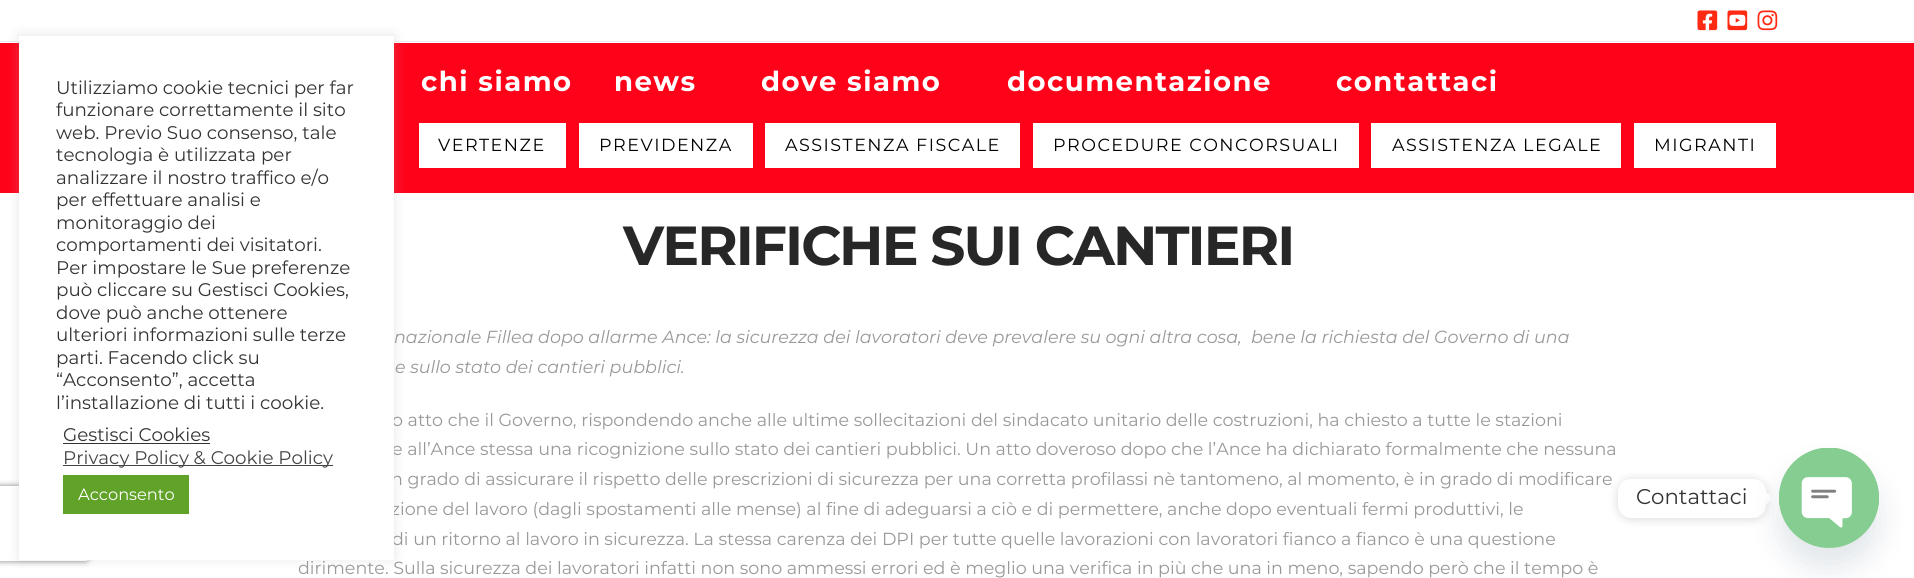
#include <cairo/cairo.h>
#include <math.h>
#include <stddef.h>


static void draw_spaced(cairo_t *cr, double x, double y, const char *s, double letter, double word) {
  cairo_move_to(cr, x, y);
  while (*s) {
    char ch[5] = {0};
    int n = 0;
    do ch[n++] = *s++; while ((*s & 0xC0) == 0x80);
    cairo_show_text(cr, ch);
    cairo_rel_move_to(cr, letter + word * (*ch == ' '), 0);
  }
}

static void rounded_rect(cairo_t *cr, double x, double y, double w, double h, double r) {
  cairo_new_sub_path(cr);
  cairo_arc(cr, x + w - r, y + h - r, r, 0, M_PI / 2);
  cairo_arc(cr, x + r, y + h - r, r, M_PI / 2, M_PI);
  cairo_arc(cr, x + r, y + r, r, M_PI, 1.5 * M_PI);
  cairo_arc(cr, x + w - r, y + r, r, 1.5 * M_PI, 2 * M_PI);
  cairo_close_path(cr);
}

static void draw_shadow(cairo_t *cr, double x, double y, double w, double h, double r, double blur, double alpha) {
  cairo_push_group_with_content(cr, CAIRO_CONTENT_ALPHA);
  cairo_set_operator(cr, CAIRO_OPERATOR_SOURCE);
  for (int i = 15; i >= -15 && fmin(w, h) + blur * i / 3 > 0; i -= 2) {
    double e = blur * i / 6;
    cairo_set_source_rgba(cr, 0, 0, 0, alpha * erfc((i - 1) / 8.5) / 2);
    rounded_rect(cr, x - e, y - e, w + 2 * e, h + 2 * e, fmax(0, fmin(r + e + blur * .6, fmin(w, h) / 2 + e)));
    cairo_fill(cr);
  }
  cairo_pattern_t *soft = cairo_pop_group(cr);
  cairo_mask(cr, soft);
  cairo_pattern_destroy(soft);
}

static void draw_image(cairo_t *cr, const char *path, double x, double y, double w, double h) {
  cairo_surface_t *image = cairo_image_surface_create_from_png(path);
  cairo_save(cr);
  cairo_set_source_surface(cr, image, x, y);
  cairo_rectangle(cr, x, y, w, h);
  cairo_fill(cr);
  cairo_restore(cr);
  cairo_surface_destroy(image);
}

static void draw(cairo_t *cr) {
  cairo_set_source_rgb(cr, 1, 1, 1);
  cairo_paint(cr);
  cairo_set_source_rgb(cr, 236 / 255.0, 236 / 255.0, 236 / 255.0);
  cairo_rectangle(cr, 0, 41, 1914, 1);
  cairo_fill(cr);
  cairo_set_source_rgb(cr, 254 / 255.0, 2 / 255.0, 25 / 255.0);
  cairo_rectangle(cr, 0, 43, 1914, 150);
  cairo_fill(cr);
  cairo_set_source_rgb(cr, 172 / 255.0, 171 / 255.0, 171 / 255.0);
  draw_shadow(cr, 19, 35, 375, 524, 0, 6, 0.3);
  draw_image(cr, "images/1.png", 1697, 10, 21, 21);
  draw_image(cr, "images/2.png", 1727, 10, 21, 21);
  draw_image(cr, "images/3.png", 1757, 10, 21, 21);
  cairo_set_source_rgb(cr, 1, 1, 1);
  cairo_rectangle(cr, 419, 123, 147, 45);
  cairo_fill(cr);
  cairo_rectangle(cr, 579, 123, 174, 45);
  cairo_fill(cr);
  cairo_rectangle(cr, 765, 123, 255, 45);
  cairo_fill(cr);
  cairo_rectangle(cr, 1033, 123, 326, 45);
  cairo_fill(cr);
  cairo_rectangle(cr, 1371, 123, 250, 45);
  cairo_fill(cr);
  cairo_rectangle(cr, 1634, 123, 142, 45);
  cairo_fill(cr);
  cairo_save(cr);
  cairo_set_fill_rule(cr, CAIRO_FILL_RULE_EVEN_ODD);
  cairo_new_path(cr);
  cairo_move_to(cr, 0, 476);
  cairo_line_to(cr, 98, 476);
  cairo_line_to(cr, 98, 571);
  cairo_line_to(cr, 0, 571);
  cairo_close_path(cr);
  cairo_move_to(cr, -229.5, 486);
  cairo_line_to(cr, 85.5, 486);
  cairo_curve_to(cr, 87, 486, 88, 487, 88, 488.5);
  cairo_line_to(cr, 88, 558.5);
  cairo_curve_to(cr, 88, 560, 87, 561, 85.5, 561);
  cairo_line_to(cr, -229.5, 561);
  cairo_curve_to(cr, -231, 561, -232, 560, -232, 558.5);
  cairo_line_to(cr, -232, 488.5);
  cairo_curve_to(cr, -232, 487, -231, 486, -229.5, 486);
  cairo_close_path(cr);
  cairo_clip(cr);
  cairo_set_source_rgb(cr, 128 / 255.0, 128 / 255.0, 128 / 255.0);
  draw_shadow(cr, -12, 486, 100, 75, 2.5, 3, 1);
  cairo_restore(cr);
  cairo_set_source_rgb(cr, 0, 0, 0);
  draw_shadow(cr, 1618, 480, 148, 39, 13, 5, 0.15);
  cairo_set_source_rgb(cr, 1, 1, 1);
  rounded_rect(cr, 1618, 479, 148, 39, 13);
  cairo_fill(cr);
  cairo_new_path(cr);
  cairo_move_to(cr, 1766, 504.5);
  cairo_line_to(cr, 1766, 492);
  cairo_line_to(cr, 1772.5, 498);
  cairo_close_path(cr);
  cairo_fill(cr);
  cairo_set_source_rgb(cr, 73 / 255.0, 104 / 255.0, 126 / 255.0);
  draw_shadow(cr, 1779, 468, 100, 100, 50, 15, 0.16);
  cairo_set_source_rgb(cr, 134 / 255.0, 205 / 255.0, 145 / 255.0);
  cairo_arc(cr, 1829, 498, 50, 0, 2 * M_PI);
  cairo_fill(cr);
  draw_image(cr, "images/4.png", 1779, 448, 100, 81);
  cairo_select_font_face(cr, "Montserrat", CAIRO_FONT_SLANT_NORMAL, CAIRO_FONT_WEIGHT_BOLD);
  cairo_set_font_size(cr, 27.5);
  cairo_set_source_rgb(cr, 1, 1, 1);
  draw_spaced(cr, 421, 91, "chi siamo", 1.5, 0);
  draw_spaced(cr, 614, 91, "news", 1.5, 0);
  draw_spaced(cr, 761, 91, "dove siamo", 1.5, 0);
  draw_spaced(cr, 1007, 91, "documentazione", 1.5, 0);
  draw_spaced(cr, 1336, 91, "contattaci", 1.5, 0);
  cairo_select_font_face(cr, "Montserrat Thin", CAIRO_FONT_SLANT_NORMAL, CAIRO_FONT_WEIGHT_NORMAL);
  cairo_set_font_size(cr, 17.5);
  cairo_set_source_rgb(cr, 0, 0, 0);
  draw_spaced(cr, 438, 151, "VERTENZE", 1.5, 0);
  draw_spaced(cr, 599, 151, "PREVIDENZA", 1.5, 0);
  draw_spaced(cr, 785, 151, "ASSISTENZA FISCALE", 1.5, 0);
  draw_spaced(cr, 1053, 151, "PROCEDURE CONCORSUALI", 1.5, 0);
  draw_spaced(cr, 1392, 151, "ASSISTENZA LEGALE", 1.5, 0);
  draw_spaced(cr, 1654, 151, "MIGRANTI", 1.5, 0);
  cairo_select_font_face(cr, "Montserrat", CAIRO_FONT_SLANT_NORMAL, CAIRO_FONT_WEIGHT_BOLD);
  cairo_set_font_size(cr, 55);
  cairo_set_source_rgb(cr, 39 / 255.0, 39 / 255.0, 39 / 255.0);
  draw_spaced(cr, 623, 265, "VERIFICHE SUI CANTIERI", -1.9, 0);
  cairo_select_font_face(cr, "Montserrat", CAIRO_FONT_SLANT_ITALIC, CAIRO_FONT_WEIGHT_NORMAL);
  cairo_set_font_size(cr, 17.5);
  cairo_set_source_rgb(cr, 153 / 255.0, 153 / 255.0, 153 / 255.0);
  cairo_move_to(cr, 394, 343);
  cairo_show_text(cr, "nazionale Fillea dopo allarme Ance: la sicurezza dei lavoratori deve prevalere su ogni altra cosa,  bene la richiesta del Governo di una");
  cairo_move_to(cr, 395, 373);
  cairo_show_text(cr, "e sullo stato dei cantieri pubblici.");
  cairo_select_font_face(cr, "Montserrat Thin", CAIRO_FONT_SLANT_NORMAL, CAIRO_FONT_WEIGHT_NORMAL);
  cairo_move_to(cr, 392, 426);
  cairo_show_text(cr, "o atto che il Governo, rispondendo anche alle ultime sollecitazioni del sindacato unitario delle costruzioni, ha chiesto a tutte le stazioni");
  cairo_move_to(cr, 392, 455);
  cairo_show_text(cr, "e all’Ance stessa una ricognizione sullo stato dei cantieri pubblici. Un atto doveroso dopo che l’Ance ha dichiarato formalmente che nessuna");
  cairo_move_to(cr, 391, 485);
  cairo_show_text(cr, "n grado di assicurare il rispetto delle prescrizioni di sicurezza per una corretta profilassi nè tantomeno, al momento, è in grado di modificare");
  cairo_move_to(cr, 391, 515);
  cairo_show_text(cr, "zione del lavoro (dagli spostamenti alle mense) al fine di adeguarsi a ciò e di permettere, anche dopo eventuali fermi produttivi, le");
  cairo_move_to(cr, 392, 545);
  cairo_show_text(cr, "di un ritorno al lavoro in sicurezza. La stessa carenza dei DPI per tutte quelle lavorazioni con lavoratori fianco a fianco è una questione");
  cairo_set_source_rgb(cr, 1, 1, 1);
  cairo_rectangle(cr, 19, 36, 375, 524);
  cairo_fill(cr);
  cairo_set_source_rgb(cr, 97 / 255.0, 162 / 255.0, 41 / 255.0);
  cairo_rectangle(cr, 63, 475, 126, 39);
  cairo_fill(cr);
  cairo_set_font_size(cr, 16.25);
  cairo_set_source_rgb(cr, 1, 1, 1);
  cairo_move_to(cr, 78, 500);
  cairo_show_text(cr, "Acconsento");
  cairo_set_source_rgb(cr, 68 / 255.0, 68 / 255.0, 68 / 255.0);
  cairo_rectangle(cr, 63, 465, 270, 1);
  cairo_fill(cr);
  cairo_set_font_size(cr, 18.3);
  cairo_move_to(cr, 63, 464);
  cairo_show_text(cr, "Privacy Policy & Cookie Policy");
  cairo_set_source_rgb(cr, 51 / 255.0, 51 / 255.0, 51 / 255.0);
  cairo_move_to(cr, 63, 441);
  cairo_show_text(cr, "Gestisci Cookies");
  cairo_rectangle(cr, 63, 443, 147, 1);
  cairo_fill(cr);
  cairo_move_to(cr, 56, 409);
  cairo_show_text(cr, "l’installazione di tutti i cookie.");
  cairo_move_to(cr, 56, 386);
  cairo_show_text(cr, "“Acconsento”, accetta");
  cairo_move_to(cr, 56, 364);
  cairo_show_text(cr, "parti. Facendo click su");
  cairo_move_to(cr, 56, 341);
  cairo_show_text(cr, "ulteriori informazioni sulle terze");
  cairo_move_to(cr, 56, 319);
  cairo_show_text(cr, "dove può anche ottenere");
  cairo_move_to(cr, 56, 296);
  cairo_show_text(cr, "può cliccare su Gestisci Cookies,");
  cairo_move_to(cr, 56, 274);
  cairo_show_text(cr, "Per impostare le Sue preferenze");
  cairo_move_to(cr, 56, 251);
  cairo_show_text(cr, "comportamenti dei visitatori.");
  cairo_move_to(cr, 56, 229);
  cairo_show_text(cr, "monitoraggio dei");
  cairo_move_to(cr, 56, 206);
  cairo_show_text(cr, "per effettuare analisi e");
  cairo_move_to(cr, 56, 184);
  cairo_show_text(cr, "analizzare il nostro traffico e/o");
  cairo_move_to(cr, 56, 161);
  cairo_show_text(cr, "tecnologia è utilizzata per");
  cairo_move_to(cr, 56, 139);
  cairo_show_text(cr, "web. Previo Suo consenso, tale");
  cairo_move_to(cr, 56, 116);
  cairo_show_text(cr, "funzionare correttamente il sito");
  cairo_move_to(cr, 56, 94);
  cairo_show_text(cr, "Utilizziamo cookie tecnici per far");
  cairo_set_font_size(cr, 17.5);
  cairo_set_source_rgb(cr, 153 / 255.0, 153 / 255.0, 153 / 255.0);
  cairo_move_to(cr, 298, 574);
  cairo_show_text(cr, "dirimente. Sulla sicurezza dei lavoratori infatti non sono ammessi errori ed è meglio una verifica in più che una in meno, sapendo però che il tempo è");
  cairo_set_font_size(cr, 21.25);
  cairo_set_source_rgb(cr, 51 / 255.0, 51 / 255.0, 51 / 255.0);
  cairo_move_to(cr, 1636, 504);
  cairo_show_text(cr, "Contattaci");
}

int main(void) {
  cairo_surface_t *surface = cairo_image_surface_create(CAIRO_FORMAT_RGB24, 1914, 578);
  cairo_t *cr = cairo_create(surface);
  cairo_font_options_t *options = cairo_font_options_create();
  cairo_font_options_set_hint_metrics(options, CAIRO_HINT_METRICS_OFF);
  cairo_font_options_set_hint_style(options, CAIRO_HINT_STYLE_NONE);
  cairo_set_font_options(cr, options);
  cairo_set_miter_limit(cr, 4);
  draw(cr);
  cairo_surface_write_to_png(surface, "out.png");
  cairo_font_options_destroy(options);
  cairo_destroy(cr);
  cairo_surface_destroy(surface);
  return 0;
}
